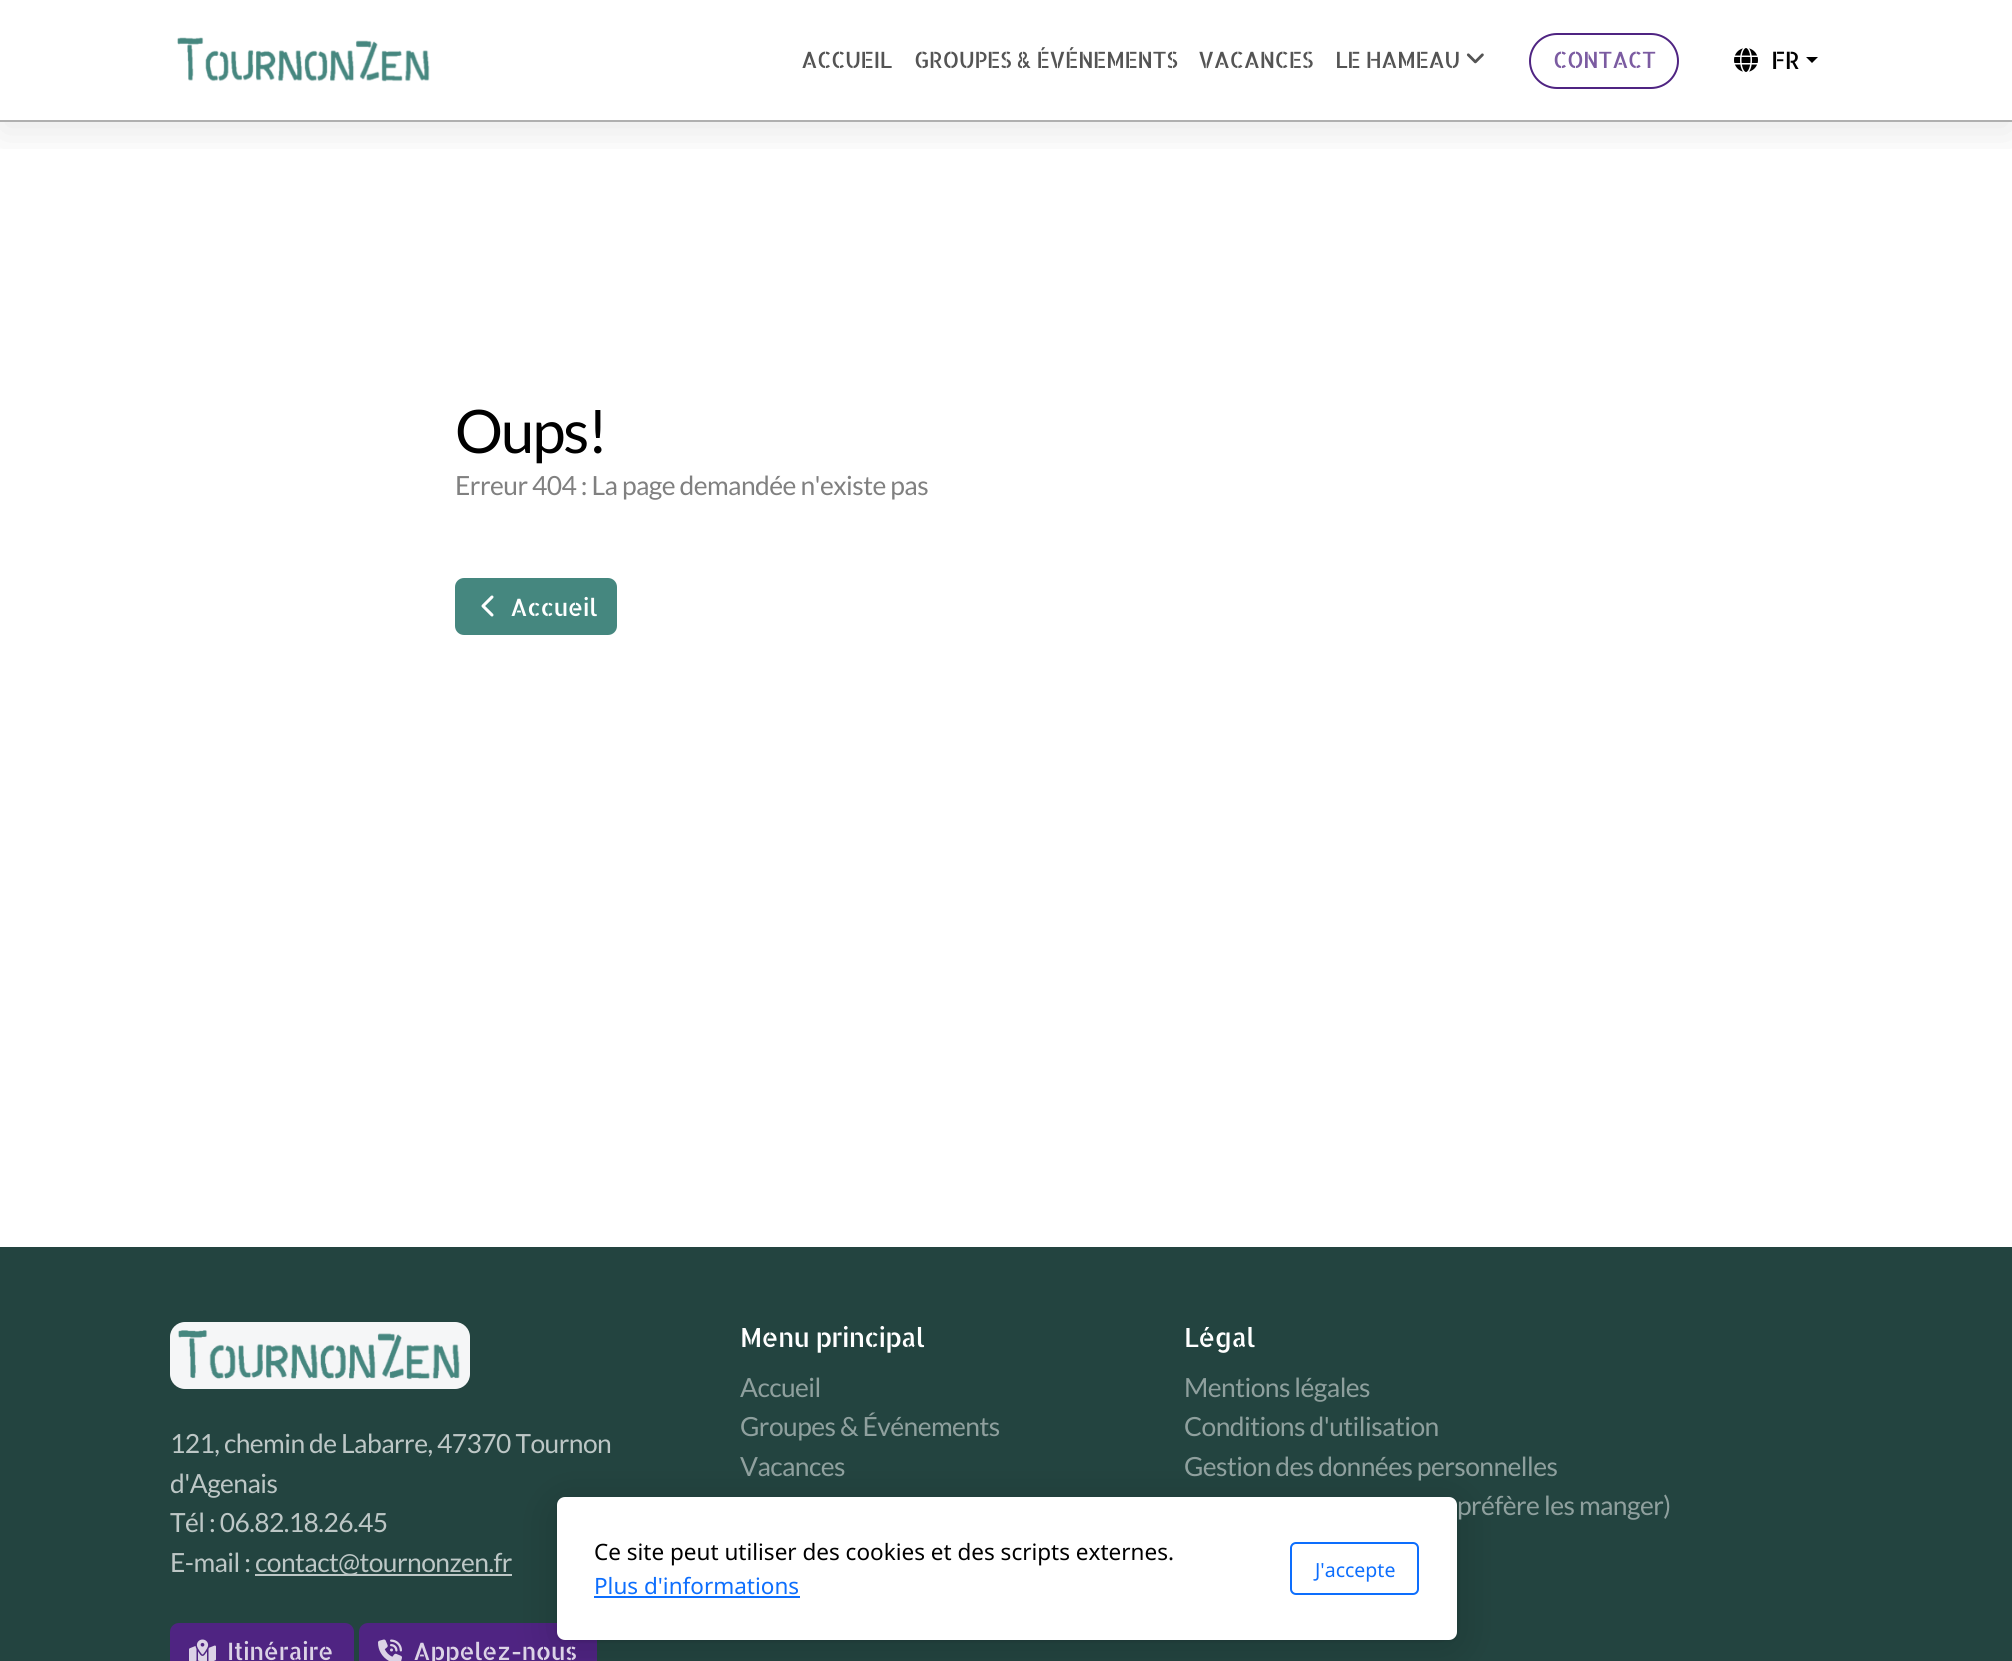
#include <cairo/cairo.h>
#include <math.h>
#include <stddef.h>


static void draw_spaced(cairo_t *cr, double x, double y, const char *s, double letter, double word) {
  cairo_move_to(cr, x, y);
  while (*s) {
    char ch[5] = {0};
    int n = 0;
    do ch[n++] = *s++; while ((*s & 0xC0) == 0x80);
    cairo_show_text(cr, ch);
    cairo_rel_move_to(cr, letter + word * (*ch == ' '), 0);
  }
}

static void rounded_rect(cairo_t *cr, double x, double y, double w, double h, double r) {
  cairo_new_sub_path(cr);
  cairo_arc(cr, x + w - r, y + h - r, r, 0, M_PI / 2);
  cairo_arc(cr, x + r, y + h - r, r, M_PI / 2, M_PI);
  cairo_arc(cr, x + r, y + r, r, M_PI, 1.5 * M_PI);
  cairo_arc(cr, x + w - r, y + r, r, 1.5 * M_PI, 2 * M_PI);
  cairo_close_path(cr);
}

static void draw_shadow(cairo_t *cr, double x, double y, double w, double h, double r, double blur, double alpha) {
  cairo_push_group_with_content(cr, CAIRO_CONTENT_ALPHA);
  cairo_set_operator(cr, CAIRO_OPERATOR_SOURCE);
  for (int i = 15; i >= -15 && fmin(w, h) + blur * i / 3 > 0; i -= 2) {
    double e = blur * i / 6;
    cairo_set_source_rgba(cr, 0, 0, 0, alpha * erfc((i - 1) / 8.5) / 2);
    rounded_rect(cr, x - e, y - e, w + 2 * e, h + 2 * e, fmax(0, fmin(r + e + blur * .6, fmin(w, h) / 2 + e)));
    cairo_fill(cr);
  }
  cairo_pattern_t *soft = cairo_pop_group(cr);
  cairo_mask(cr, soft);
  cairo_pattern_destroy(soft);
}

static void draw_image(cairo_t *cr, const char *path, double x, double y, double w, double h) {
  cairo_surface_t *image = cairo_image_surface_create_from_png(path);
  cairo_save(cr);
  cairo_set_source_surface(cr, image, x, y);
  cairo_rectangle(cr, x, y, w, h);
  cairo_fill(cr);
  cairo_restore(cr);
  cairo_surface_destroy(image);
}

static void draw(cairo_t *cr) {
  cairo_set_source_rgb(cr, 1, 1, 1);
  cairo_paint(cr);
  cairo_save(cr);
  cairo_rectangle(cr, 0, 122, 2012, 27);
  cairo_clip(cr);
  cairo_set_source_rgb(cr, 0, 0, 0);
  draw_shadow(cr, 0, 11, 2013, 121, 0, 22, 0.09);
  cairo_restore(cr);
  cairo_set_source_rgb(cr, 176 / 255.0, 176 / 255.0, 176 / 255.0);
  cairo_rectangle(cr, 0, 120, 2012, 2);
  cairo_fill(cr);
  draw_image(cr, "images/1.png", 177, 37, 253, 45);
  draw_image(cr, "images/2.png", 1466, 53, 18, 11);
  rounded_rect(cr, 1530, 34, 148, 54, 27);
  cairo_set_source_rgb(cr, 79 / 255.0, 36 / 255.0, 130 / 255.0);
  cairo_stroke(cr);
  draw_image(cr, "images/3.png", 1734, 48, 24, 24);
  cairo_set_source_rgb(cr, 0, 0, 0);
  cairo_new_path(cr);
  cairo_move_to(cr, 1806, 57);
  cairo_line_to(cr, 1818, 57);
  cairo_line_to(cr, 1812, 63);
  cairo_close_path(cr);
  cairo_fill(cr);
  cairo_set_source_rgb(cr, 69 / 255.0, 135 / 255.0, 127 / 255.0);
  rounded_rect(cr, 456, 579, 160, 55, 8);
  cairo_fill_preserve(cr);
  cairo_stroke(cr);
  draw_image(cr, "images/4.png", 481, 595, 13, 22);
  cairo_set_source_rgb(cr, 35 / 255.0, 68 / 255.0, 64 / 255.0);
  cairo_rectangle(cr, 0, 1247, 2012, 414);
  cairo_fill(cr);
  cairo_set_source_rgb(cr, 245 / 255.0, 246 / 255.0, 247 / 255.0);
  rounded_rect(cr, 170, 1322, 300, 67, 15);
  cairo_fill(cr);
  draw_image(cr, "images/5.png", 178, 1330, 282, 50);
  cairo_set_source_rgb(cr, 189 / 255.0, 199 / 255.0, 198 / 255.0);
  cairo_rectangle(cr, 255, 1574, 257, 2);
  cairo_fill(cr);
  cairo_set_source_rgb(cr, 79 / 255.0, 36 / 255.0, 130 / 255.0);
  rounded_rect(cr, 171, 1624, 182, 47, 8);
  cairo_fill_preserve(cr);
  cairo_stroke(cr);
  draw_image(cr, "images/6.png", 189, 1639, 27, 22);
  rounded_rect(cr, 360, 1624, 236, 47, 8);
  cairo_fill_preserve(cr);
  cairo_stroke(cr);
  draw_image(cr, "images/7.png", 378, 1639, 24, 22);
  cairo_set_source_rgb(cr, 0, 0, 0);
  draw_shadow(cr, 557, 1505, 900, 142, 8, 22.5, 0.16);
  draw_shadow(cr, 557, 1499, 900, 142, 8, 2, 0.1);
  cairo_set_source_rgb(cr, 1, 1, 1);
  rounded_rect(cr, 557, 1497, 900, 143, 8);
  cairo_fill(cr);
  cairo_set_source_rgb(cr, 13 / 255.0, 110 / 255.0, 253 / 255.0);
  cairo_rectangle(cr, 594, 1596, 206, 2);
  cairo_fill(cr);
  rounded_rect(cr, 1291, 1543, 127, 51, 5);
  cairo_stroke(cr);
  cairo_select_font_face(cr, "Allerta Stencil", CAIRO_FONT_SLANT_NORMAL, CAIRO_FONT_WEIGHT_NORMAL);
  cairo_set_font_size(cr, 22.5);
  cairo_set_source_rgb(cr, 84 / 255.0, 84 / 255.0, 84 / 255.0);
  draw_spaced(cr, 801, 68, "ACCUEIL", -0.75, 0);
  draw_spaced(cr, 914, 68, "GROUPES & ÉVÉNEMENTS", -0.75, 0);
  draw_spaced(cr, 1198, 68, "VACANCES", -0.75, 0);
  draw_spaced(cr, 1335, 68, "LE HAMEAU", -0.75, 0);
  cairo_set_source_rgb(cr, 123 / 255.0, 91 / 255.0, 161 / 255.0);
  draw_spaced(cr, 1553, 68, "CONTACT", -0.75, 0);
  cairo_set_font_size(cr, 24);
  cairo_set_source_rgb(cr, 0, 0, 0);
  cairo_move_to(cr, 1771, 69);
  cairo_show_text(cr, "FR");
  cairo_select_font_face(cr, "Lato", CAIRO_FONT_SLANT_NORMAL, CAIRO_FONT_WEIGHT_NORMAL);
  cairo_set_font_size(cr, 60);
  draw_spaced(cr, 455, 453, "Oups!", -2, 0);
  cairo_set_font_size(cr, 26.4);
  cairo_set_source_rgb(cr, 128 / 255.0, 128 / 255.0, 128 / 255.0);
  draw_spaced(cr, 455, 495, "Erreur 404 : La page demandée n'existe pas", -0.55, 0);
  cairo_select_font_face(cr, "Allerta Stencil", CAIRO_FONT_SLANT_NORMAL, CAIRO_FONT_WEIGHT_NORMAL);
  cairo_set_font_size(cr, 24);
  cairo_set_source_rgb(cr, 1, 1, 1);
  draw_spaced(cr, 510, 616, "Accueil", -0.55, 0);
  cairo_select_font_face(cr, "Lato", CAIRO_FONT_SLANT_NORMAL, CAIRO_FONT_WEIGHT_NORMAL);
  cairo_set_font_size(cr, 26.4);
  cairo_set_source_rgb(cr, 189 / 255.0, 199 / 255.0, 198 / 255.0);
  draw_spaced(cr, 170, 1453, "121, chemin de Labarre, 47370 Tournon", -0.55, 0);
  draw_spaced(cr, 170, 1493, "d'Agenais", -0.55, 0);
  draw_spaced(cr, 170, 1532, "Tél : 06.82.18.26.45", -0.55, 0);
  draw_spaced(cr, 170, 1572, "E-mail :", -0.55, 0);
  draw_spaced(cr, 255, 1572, "contact@tournonzen.fr", -0.55, 0);
  cairo_select_font_face(cr, "Allerta Stencil", CAIRO_FONT_SLANT_NORMAL, CAIRO_FONT_WEIGHT_NORMAL);
  cairo_set_font_size(cr, 24);
  cairo_set_source_rgb(cr, 220 / 255.0, 211 / 255.0, 230 / 255.0);
  draw_spaced(cr, 227, 1660, "Itinéraire", -0.55, 0);
  draw_spaced(cr, 413, 1660, "Appelez-nous", -0.55, 0);
  cairo_set_font_size(cr, 26.4);
  cairo_set_source_rgb(cr, 1, 1, 1);
  draw_spaced(cr, 740, 1347, "Menu principal", -0.75, 0);
  cairo_select_font_face(cr, "Lato", CAIRO_FONT_SLANT_NORMAL, CAIRO_FONT_WEIGHT_NORMAL);
  cairo_set_source_rgb(cr, 143 / 255.0, 160 / 255.0, 158 / 255.0);
  draw_spaced(cr, 740, 1397, "Accueil", -0.55, 0);
  draw_spaced(cr, 740, 1436, "Groupes & Événements", -0.55, 0);
  draw_spaced(cr, 740, 1476, "Vacances", -0.55, 0);
  cairo_select_font_face(cr, "Allerta Stencil", CAIRO_FONT_SLANT_NORMAL, CAIRO_FONT_WEIGHT_NORMAL);
  cairo_set_source_rgb(cr, 1, 1, 1);
  draw_spaced(cr, 1184, 1347, "Légal", -0.75, 0);
  cairo_select_font_face(cr, "Lato", CAIRO_FONT_SLANT_NORMAL, CAIRO_FONT_WEIGHT_NORMAL);
  cairo_set_source_rgb(cr, 143 / 255.0, 160 / 255.0, 158 / 255.0);
  draw_spaced(cr, 1184, 1397, "Mentions légales", -0.55, 0);
  draw_spaced(cr, 1184, 1436, "Conditions d'utilisation", -0.55, 0);
  draw_spaced(cr, 1184, 1476, "Gestion des données personnelles", -0.55, 0);
  draw_spaced(cr, 1457, 1515, "préfère les manger)", -0.55, 0);
  cairo_select_font_face(cr, "Noto Sans", CAIRO_FONT_SLANT_NORMAL, CAIRO_FONT_WEIGHT_NORMAL);
  cairo_set_font_size(cr, 22.5);
  cairo_set_source_rgb(cr, 0, 0, 0);
  cairo_move_to(cr, 594, 1560);
  cairo_show_text(cr, "Ce site peut utiliser des cookies et des scripts externes.");
  cairo_set_source_rgb(cr, 13 / 255.0, 110 / 255.0, 253 / 255.0);
  cairo_move_to(cr, 594, 1594);
  cairo_show_text(cr, "Plus d'informations");
  cairo_set_font_size(cr, 19.5);
  cairo_move_to(cr, 1315, 1577);
  cairo_show_text(cr, "J'accepte");
}

int main(void) {
  cairo_surface_t *surface = cairo_image_surface_create(CAIRO_FORMAT_RGB24, 2012, 1661);
  cairo_t *cr = cairo_create(surface);
  cairo_font_options_t *options = cairo_font_options_create();
  cairo_font_options_set_hint_metrics(options, CAIRO_HINT_METRICS_OFF);
  cairo_font_options_set_hint_style(options, CAIRO_HINT_STYLE_NONE);
  cairo_set_font_options(cr, options);
  cairo_set_miter_limit(cr, 4);
  draw(cr);
  cairo_surface_write_to_png(surface, "out.png");
  cairo_font_options_destroy(options);
  cairo_destroy(cr);
  cairo_surface_destroy(surface);
  return 0;
}
